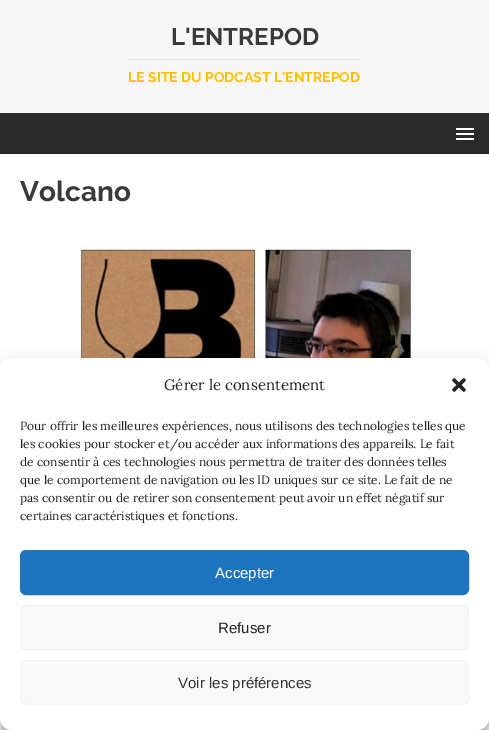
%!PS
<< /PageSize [489 730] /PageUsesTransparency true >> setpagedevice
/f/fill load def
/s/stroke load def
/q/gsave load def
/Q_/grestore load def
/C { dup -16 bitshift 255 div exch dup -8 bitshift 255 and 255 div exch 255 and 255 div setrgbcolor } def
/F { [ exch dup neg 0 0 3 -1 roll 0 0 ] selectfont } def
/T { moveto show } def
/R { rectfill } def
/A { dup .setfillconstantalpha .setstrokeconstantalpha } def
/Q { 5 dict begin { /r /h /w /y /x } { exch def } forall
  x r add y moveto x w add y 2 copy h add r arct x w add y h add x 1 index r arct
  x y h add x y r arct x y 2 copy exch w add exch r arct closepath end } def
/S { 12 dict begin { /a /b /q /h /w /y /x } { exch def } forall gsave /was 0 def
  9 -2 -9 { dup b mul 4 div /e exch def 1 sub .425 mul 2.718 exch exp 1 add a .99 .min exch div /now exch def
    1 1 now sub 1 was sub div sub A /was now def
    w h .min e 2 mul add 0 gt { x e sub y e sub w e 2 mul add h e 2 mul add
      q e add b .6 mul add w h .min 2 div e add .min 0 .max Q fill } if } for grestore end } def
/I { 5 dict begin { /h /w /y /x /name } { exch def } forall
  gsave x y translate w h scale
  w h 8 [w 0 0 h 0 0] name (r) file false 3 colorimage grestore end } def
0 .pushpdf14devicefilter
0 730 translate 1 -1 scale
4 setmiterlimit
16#F7F7F7 C
0 0 489 730 R
/Raleway-Bold 24 F
16#3A3A3A C
(L'ENTREPOD) 171 45 T
16#E5E5E5 C
128 59 233 1 R
/Raleway-Bold 14 F
16#FFC001 C
(LE SITE DU PODCAST L'ENTREPOD) 128 82 T
16#2A2A2A C
0 113 489 41 R
16#FFFFFF C
456 128 18 2 1 Q f
456 133 18 2 1 Q f
456 138 18 2 1 Q f
0 154 489 576 R
/Raleway-Bold 28 F
16#3A3A3A C
(Volcano) 20 201 T
(1.rgb) 79 243 336 115 I
16#000000 C
0 364 489 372 12 3 .23 S
0 368 489 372 12 10 .19 S
16#FFFFFF C
0 358 489 372 12 Q f
/Lora-Regular 15 F
16#222222 C
(Gérer le consentement) 164 390 T
(2.rgb) 452 378 14 14 I
/Lora-Regular 12 F
(Pour offrir les meilleures expériences, nous utilisons des technologies telles que) 20 430 T
(les cookies pour stocker et/ou accéder aux informations des appareils. Le fait) 20 448 T
(de consentir à ces technologies nous permettra de traiter des données telles) 20 466 T
(que le comportement de navigation ou les ID uniques sur ce site. Le fait de ne) 20 484 T
(pas consentir ou de retirer son consentement peut avoir un effet négatif sur) 20 502 T
(certaines caractéristiques et fonctions.) 20 520 T
16#1E73BE C
20.5 550.5 448 44 5.5 Q q f Q_
s
/LiberationSans-Regular 15 F
16#FFFFFF C
(Accepter) 215 578 T
16#F9F9F9 C
20.5 605.5 448 44 5.5 Q q f Q_
16#F2F2F2 C
s
16#222222 C
(Refuser) 218 633 T
16#F9F9F9 C
20.5 660.5 448 44 5.5 Q q f Q_
16#F2F2F2 C
s
16#333333 C
(Voir les préférences) 178 688 T
.poppdf14devicefilter showpage
